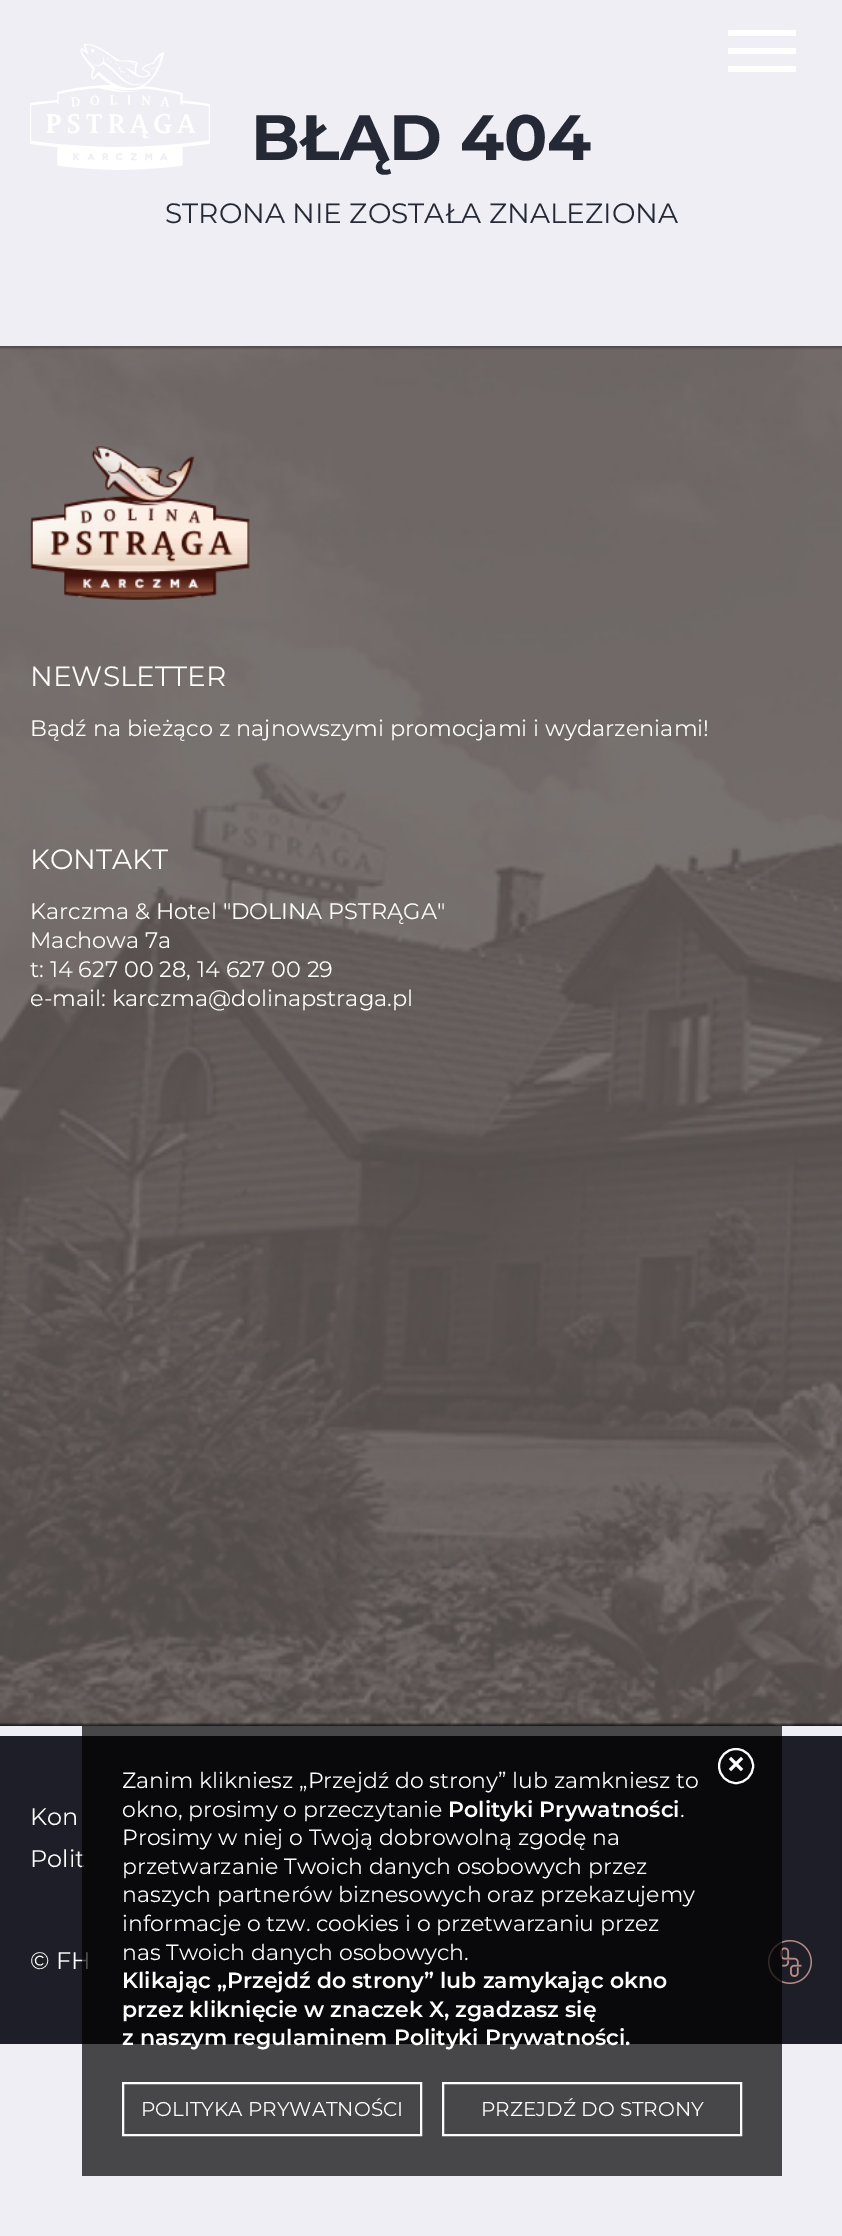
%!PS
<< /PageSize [842 2236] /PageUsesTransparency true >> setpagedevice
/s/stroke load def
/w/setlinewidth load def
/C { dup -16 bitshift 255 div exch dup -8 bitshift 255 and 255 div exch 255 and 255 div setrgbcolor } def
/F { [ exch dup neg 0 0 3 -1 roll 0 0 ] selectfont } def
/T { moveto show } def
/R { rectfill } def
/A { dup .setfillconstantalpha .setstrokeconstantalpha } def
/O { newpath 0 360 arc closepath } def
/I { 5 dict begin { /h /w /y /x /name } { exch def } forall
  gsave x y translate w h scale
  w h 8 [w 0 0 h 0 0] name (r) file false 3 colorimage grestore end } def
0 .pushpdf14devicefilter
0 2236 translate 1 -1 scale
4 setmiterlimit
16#EFEEF4 C
0 0 842 2236 R
(1.rgb) 30 44 180 126 I
16#FFFFFF C
728 48 68 6 R
728 30 68 6 R
728 66 68 6 R
/Montserrat-Bold 64 F
16#252936 C
(BŁĄD 404) 251 160 T
/Montserrat-Regular 28 F
(STRONA NIE ZOSTAŁA ZNALEZIONA) 165 223 T
(2.rgb) 0 346 842 1380 I
(3.rgb) 30 446 220 154 I
16#FEFEFC C
(NEWSLETTER) 30 686 T
/Montserrat-Regular 22.4 F
(Bądź na bieżąco z najnowszymi promocjami i wydarzeniami!) 30 736 T
/Montserrat-Regular 28 F
(KONTAKT) 30 869 T
/Montserrat-Regular 22.4 F
(Karczma & Hotel "DOLINA PSTRĄGA") 30 919 T
(Machowa 7a) 30 948 T
(t: 14 627 00 28, 14 627 00 29) 30 977 T
(e-mail: karczma@dolinapstraga.pl) 30 1006 T
16#1E1E28 C
0 1736 842 308 R
/Montserrat-Regular 24 F
16#FEFEFC C
(Kon) 30 1825 T
(Polit) 30 1867 T
(© FH) 30 1969 T
(4.rgb) 768 1940 44 44 I
0.7 A
16#000000 C
82 1726 700 450 R
1 A
16#FFFFFF C
2 w
736 1766 17 O s
(5.rgb) 728 1756 16 16 I
/Montserrat-Regular 22 F
16#FEFEFC C
(Zanim klikniesz „Przejdź do strony” lub zamkniesz to) 122 1788 T
(okno, prosimy o przeczytanie) 122 1817 T
/Montserrat-SemiBold 22 F
(Polityki Prywatności) 448 1817 T
/Montserrat-Regular 22 F
(.) 680 1817 T
(Prosimy w niej o Twoją dobrowolną zgodę na) 122 1845 T
(przetwarzanie Twoich danych osobowych przez) 122 1874 T
(naszych partnerów biznesowych oraz przekazujemy) 122 1902 T
(informacje o tzw. cookies i o przetwarzaniu przez) 122 1931 T
(nas Twoich danych osobowych.) 122 1960 T
/Montserrat-SemiBold 22 F
(Klikając „Przejdź do strony” lub zamykając okno) 122 1988 T
(przez kliknięcie w znaczek X, zgadzasz się) 122 2017 T
(z naszym regulaminem Polityki Prywatności.) 122 2045 T
16#FFFFFF C
123 2083 298 52 rectstroke
/Montserrat-Regular 20 F
16#FEFEFC C
(POLITYKA PRYWATNOŚCI) 141 2116 T
16#FFFFFF C
443 2083 298 52 rectstroke
16#FEFEFC C
(PRZEJDŹ DO STRONY) 481 2116 T
.poppdf14devicefilter showpage
